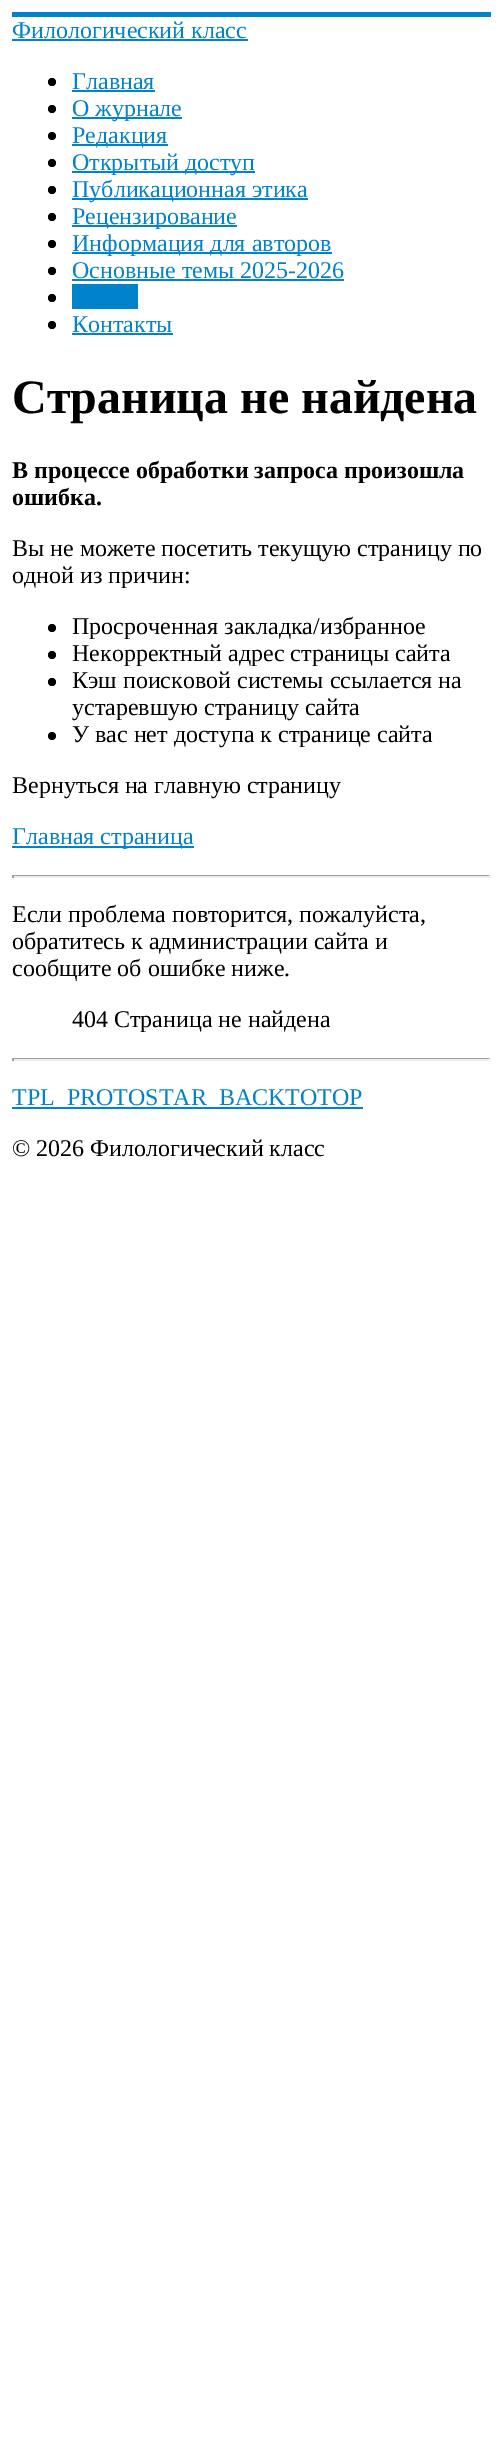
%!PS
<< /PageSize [502 2450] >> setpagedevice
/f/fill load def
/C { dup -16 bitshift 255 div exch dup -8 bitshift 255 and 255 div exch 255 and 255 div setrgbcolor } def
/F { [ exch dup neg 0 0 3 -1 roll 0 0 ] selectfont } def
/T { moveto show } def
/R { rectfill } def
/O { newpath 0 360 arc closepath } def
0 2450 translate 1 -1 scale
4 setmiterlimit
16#FFFFFF C
0 0 502 2450 R
16#0083CA C
12 12 479 5 R
/LiberationSerif-Regular 24 F
(Филологический класс) 12 38 T
12 39 236 2 R
16#000000 C
52 82 4 O f
16#0083CA C
(Главная) 72 89 T
72 90 83 2 R
16#000000 C
52 109 4 O f
16#0083CA C
72 117 110 2 R
(О журнале) 72 116 T
16#000000 C
52 136 4 O f
16#0083CA C
72 144 96 2 R
(Редакция) 72 143 T
16#000000 C
52 163 4 O f
16#0083CA C
72 171 183 2 R
(Открытый доступ) 72 170 T
16#000000 C
52 190 4 O f
16#0083CA C
72 198 236 2 R
(Публикационная этика) 72 197 T
16#000000 C
52 217 4 O f
16#0083CA C
72 225 165 2 R
(Рецензирование) 72 224 T
16#000000 C
52 244 4 O f
16#0083CA C
72 252 260 2 R
(Информация для авторов) 72 251 T
16#000000 C
52 271 4 O f
16#0083CA C
(Основные темы 2025-2026) 72 278 T
72 279 272 2 R
16#000000 C
52 298 4 O f
16#0083CA C
72 284 66 25 R
16#000000 C
52 325 4 O f
16#0083CA C
(Контакты) 72 332 T
72 333 101 2 R
/LiberationSerif-Bold 48 F
16#000000 C
(Страница не найдена) 12 413 T
/LiberationSerif-Bold 24 F
(В процессе обработки запроса произошла) 12 478 T
(ошибка.) 12 505 T
/LiberationSerif-Regular 24 F
(Вы не можете посетить текущую страницу по) 12 556 T
(одной из причин:) 12 583 T
52 628 4 O f
(Просроченная закладка/избранное) 72 634 T
52 655 4 O f
(Некорректный адрес страницы сайта) 72 661 T
52 682 4 O f
(Кэш поисковой системы ссылается на) 72 688 T
(устаревшую страницу сайта) 72 715 T
52 736 4 O f
(У вас нет доступа к странице сайта) 72 742 T
(Вернуться на главную страницу) 12 793 T
16#0083CA C
12 846 182 2 R
(Главная страница) 12 844 T
16#9F9F9F C
12 875 479 1 R
16#EEEEEE C
489 875 2 3 R
12 876 479 2 R
16#9F9F9F C
12 875 2 3 R
16#000000 C
(Если проблема повторится, пожалуйста,) 12 922 T
(обратитесь к администрации сайта и) 12 949 T
(сообщите об ошибке ниже.) 12 976 T
(404 Страница не найдена) 72 1027 T
16#9F9F9F C
12 1058 479 1 R
16#EEEEEE C
489 1058 2 3 R
12 1059 479 2 R
16#9F9F9F C
12 1058 2 3 R
16#0083CA C
12 1107 351 2 R
(TPL_PROTOSTAR_BACKTOTOP) 12 1105 T
16#000000 C
(© 2026 Филологический класс) 12 1156 T
showpage
